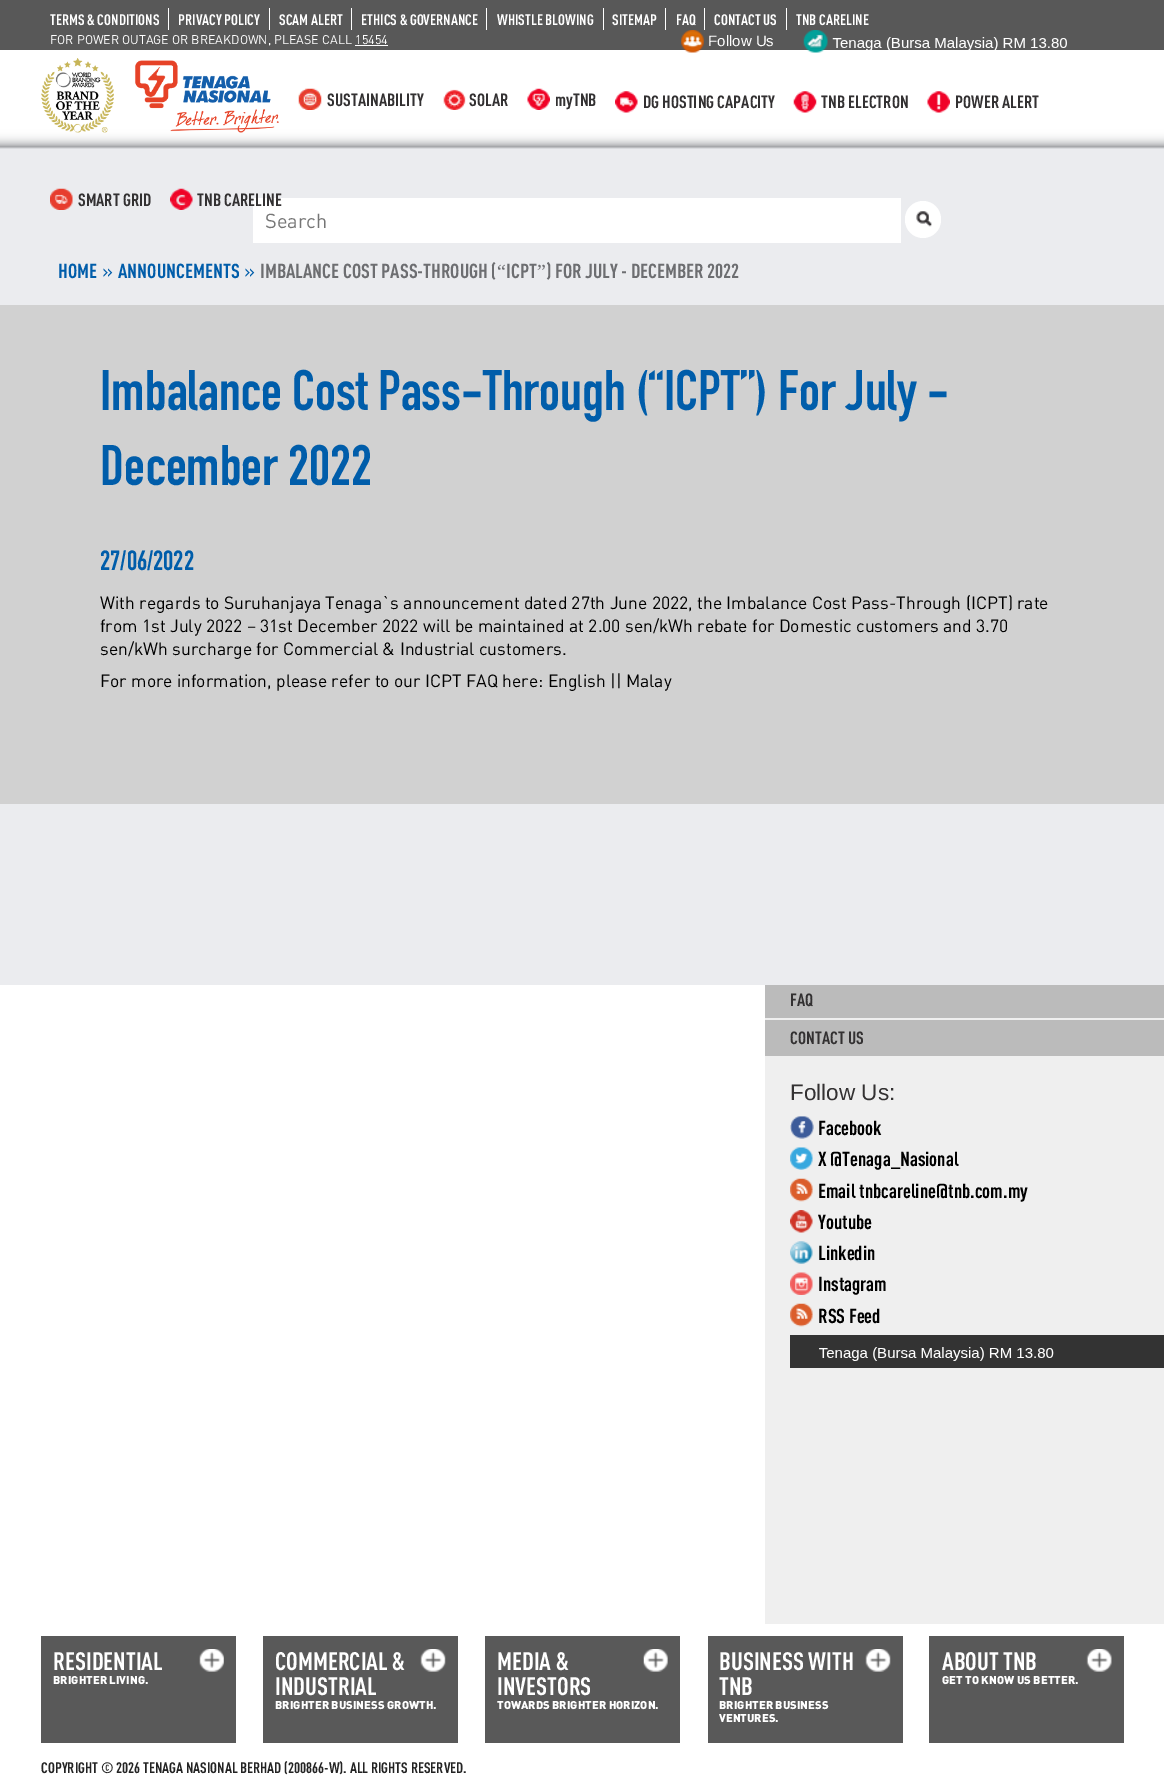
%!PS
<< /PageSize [1164 1792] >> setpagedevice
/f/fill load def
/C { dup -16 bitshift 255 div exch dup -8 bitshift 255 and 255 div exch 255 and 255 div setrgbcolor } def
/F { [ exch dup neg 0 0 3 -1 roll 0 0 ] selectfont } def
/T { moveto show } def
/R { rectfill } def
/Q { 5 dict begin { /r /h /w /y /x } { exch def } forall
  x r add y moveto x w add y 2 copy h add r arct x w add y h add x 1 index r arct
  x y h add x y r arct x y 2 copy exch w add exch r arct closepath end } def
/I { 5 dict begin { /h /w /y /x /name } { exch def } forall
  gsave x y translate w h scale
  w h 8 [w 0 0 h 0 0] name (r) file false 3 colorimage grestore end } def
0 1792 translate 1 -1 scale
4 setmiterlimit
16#FFFFFF C
0 0 1164 1792 R
16#585858 C
0 0 1164 50 R
16#FFFFFF C
168 8 1 22 R
/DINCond-Bold 15 F
(TERMS & CONDITIONS) 50 25 T
269 8 1 22 R
(PRIVACY POLICY) 178 25 T
351 8 1 22 R
(SCAM ALERT) 279 25 T
486 8 1 22 R
(ETHICS & GOVERNANCE) 361 25 T
603 8 1 22 R
(WHISTLE BLOWING) 497 25 T
665 8 1 22 R
(SITEMAP) 612 25 T
704 8 1 22 R
(FAQ) 676 25 T
786 8 1 22 R
(CONTACT US) 714 25 T
(TNB CARELINE) 796 25 T
16#EBECEF C
0 147 1164 838 R
(4.rgb) 0 50 1164 99 I
(1.rgb) 681 30 23 23 I
/LiberationSans-Regular 15 F
16#FFFFFF C
(Follow Us) 708 46 T
(2.rgb) 803 30 25 23 I
(3.rgb) 832 37 235 13 I
/DIN-Regular 12.5 F
(FOR POWER OUTAGE OR BREAKDOWN, PLEASE CALL 15454) 50 44 T
355 45 33 1 R
(5.rgb) 41 58 238 75 I
(6.rgb) 298 88 24 22 I
/DINCond-Bold 17.5 F
16#333132 C
(SUSTAINABILITY) 327 106 T
(7.rgb) 443 89 23 21 I
(SOLAR) 469 106 T
(8.rgb) 527 88 23 22 I
(myTNB) 555 106 T
(9.rgb) 615 91 23 22 I
(DG HOSTING CAPACITY) 643 108 T
(10.rgb) 793 91 24 22 I
(TNB ELECTRON) 821 108 T
(11.rgb) 927 91 23 22 I
(POWER ALERT) 955 108 T
(12.rgb) 50 188 23 22 I
(SMART GRID) 78 206 T
(13.rgb) 170 188 23 22 I
16#FFFFFF C
253 198 648 45 R
16#333132 C
(TNB CARELINE) 197 206 T
/DIN-Regular 20 F
16#757575 C
(Search) 265 228 T
16#FFFFFF C
905 201 36 37 18 Q f
(14.rgb) 916 211 16 16 I
/DINCond-Bold 20 F
16#005DAA C
(HOME) 58 278 T
(ANNOUNCEMENTS) 118 278 T
16#6D6E71 C
(IMBALANCE COST PASS-THROUGH \() 260 278 T
/LiberationSerif-Regular 20 F
(“) 497 278 T
/DINCond-Bold 20 F
(ICPT) 506 278 T
/LiberationSerif-Regular 20 F
(”) 537 278 T
/DINCond-Bold 20 F
(\) FOR JULY - DECEMBER 2022) 546 278 T
/DIN-Regular 20 F
16#005DAA C
(») 102 278 T
(») 244 278 T
16#D1D1D1 C
0 305 1164 499 R
/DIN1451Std-Regular 56.25 F
16#005DAA C
(Imbalance Cost Pass-Through \(“ICPT”\) For July -) 100 410 T
(December 2022) 100 485 T
/DIN1451Std-Regular 27.5 F
(27/06/2022) 100 570 T
/DIN-Regular 17.5 F
16#000000 C
(With regards to Suruhanjaya Tenaga`s announcement dated 27th June 2022, the Imbalance Cost Pass-Through \(ICPT\) rate) 100 609 T
(from 1st July 2022 – 31st December 2022 will be maintained at 2.00 sen/kWh rebate for Domestic customers and 3.70) 100 632 T
(sen/kWh surcharge for Commercial & Industrial customers.) 100 655 T
(For more information, please refer to our ICPT FAQ here: English || Malay) 100 687 T
16#595959 C
41 1636 195 107 R
/DINCond-Bold 25 F
16#FFFFFF C
(RESIDENTIAL) 53 1670 T
(15.rgb) 199 1649 25 23 I
/DIN-Black 11.25 F
(BRIGHTER LIVING.) 53 1684 T
16#595959 C
263 1636 195 107 R
/DINCond-Bold 25 F
16#FFFFFF C
(COMMERCIAL &) 275 1670 T
(16.rgb) 420 1649 26 23 I
(INDUSTRIAL) 275 1695 T
/DIN-Black 11.25 F
(BRIGHTER BUSINESS GROWTH.) 275 1709 T
16#595959 C
485 1636 195 107 R
/DINCond-Bold 25 F
16#FFFFFF C
(MEDIA &) 497 1670 T
(17.rgb) 643 1649 25 23 I
(INVESTORS) 497 1695 T
/DIN-Black 11.25 F
(TOWARDS BRIGHTER HORIZON.) 497 1709 T
16#595959 C
708 1636 195 107 R
/DINCond-Bold 25 F
16#FFFFFF C
(BUSINESS WITH) 719 1670 T
(16.rgb) 865 1649 26 23 I
(TNB) 719 1695 T
/DIN-Black 11.25 F
(BRIGHTER BUSINESS) 719 1709 T
(VENTURES.) 719 1722 T
16#595959 C
929 1636 195 107 R
/DINCond-Bold 25 F
16#FFFFFF C
(ABOUT TNB) 942 1670 T
(18.rgb) 1086 1649 26 23 I
/DIN-Black 11.25 F
(GET TO KNOW US BETTER.) 942 1684 T
/DINCond-Bold 15 F
16#232323 C
(COPYRIGHT © 2026 TENAGA NASIONAL BERHAD \(200866-W\). ALL RIGHTS RESERVED.) 41 1773 T
16#EFEFEF C
765 1018 399 606 R
16#BBBBBB C
765 985 399 33 R
/DINCond-Bold 17.5 F
16#333132 C
(FAQ) 790 1006 T
16#BBBBBB C
765 1020 399 36 R
16#333132 C
(CONTACT US) 790 1044 T
/LiberationSans-Regular 22.5 F
(Follow Us:) 790 1100 T
(19.rgb) 790 1116 24 23 I
/DINCond-Bold 20 F
16#000000 C
(Facebook) 818 1135 T
(20.rgb) 790 1147 23 23 I
(X @Tenaga_Nasional) 818 1166 T
(21.rgb) 790 1178 23 24 I
(Email tnbcareline@tnb.com.my) 818 1198 T
(22.rgb) 790 1210 23 23 I
(Youtube) 818 1229 T
(23.rgb) 790 1241 23 23 I
(Linkedin) 818 1260 T
(24.rgb) 790 1272 23 23 I
(Instagram) 818 1291 T
(21.rgb) 790 1303 23 24 I
(RSS Feed) 818 1323 T
16#333333 C
790 1335 374 33 R
(25.rgb) 819 1347 235 14 I
showpage
